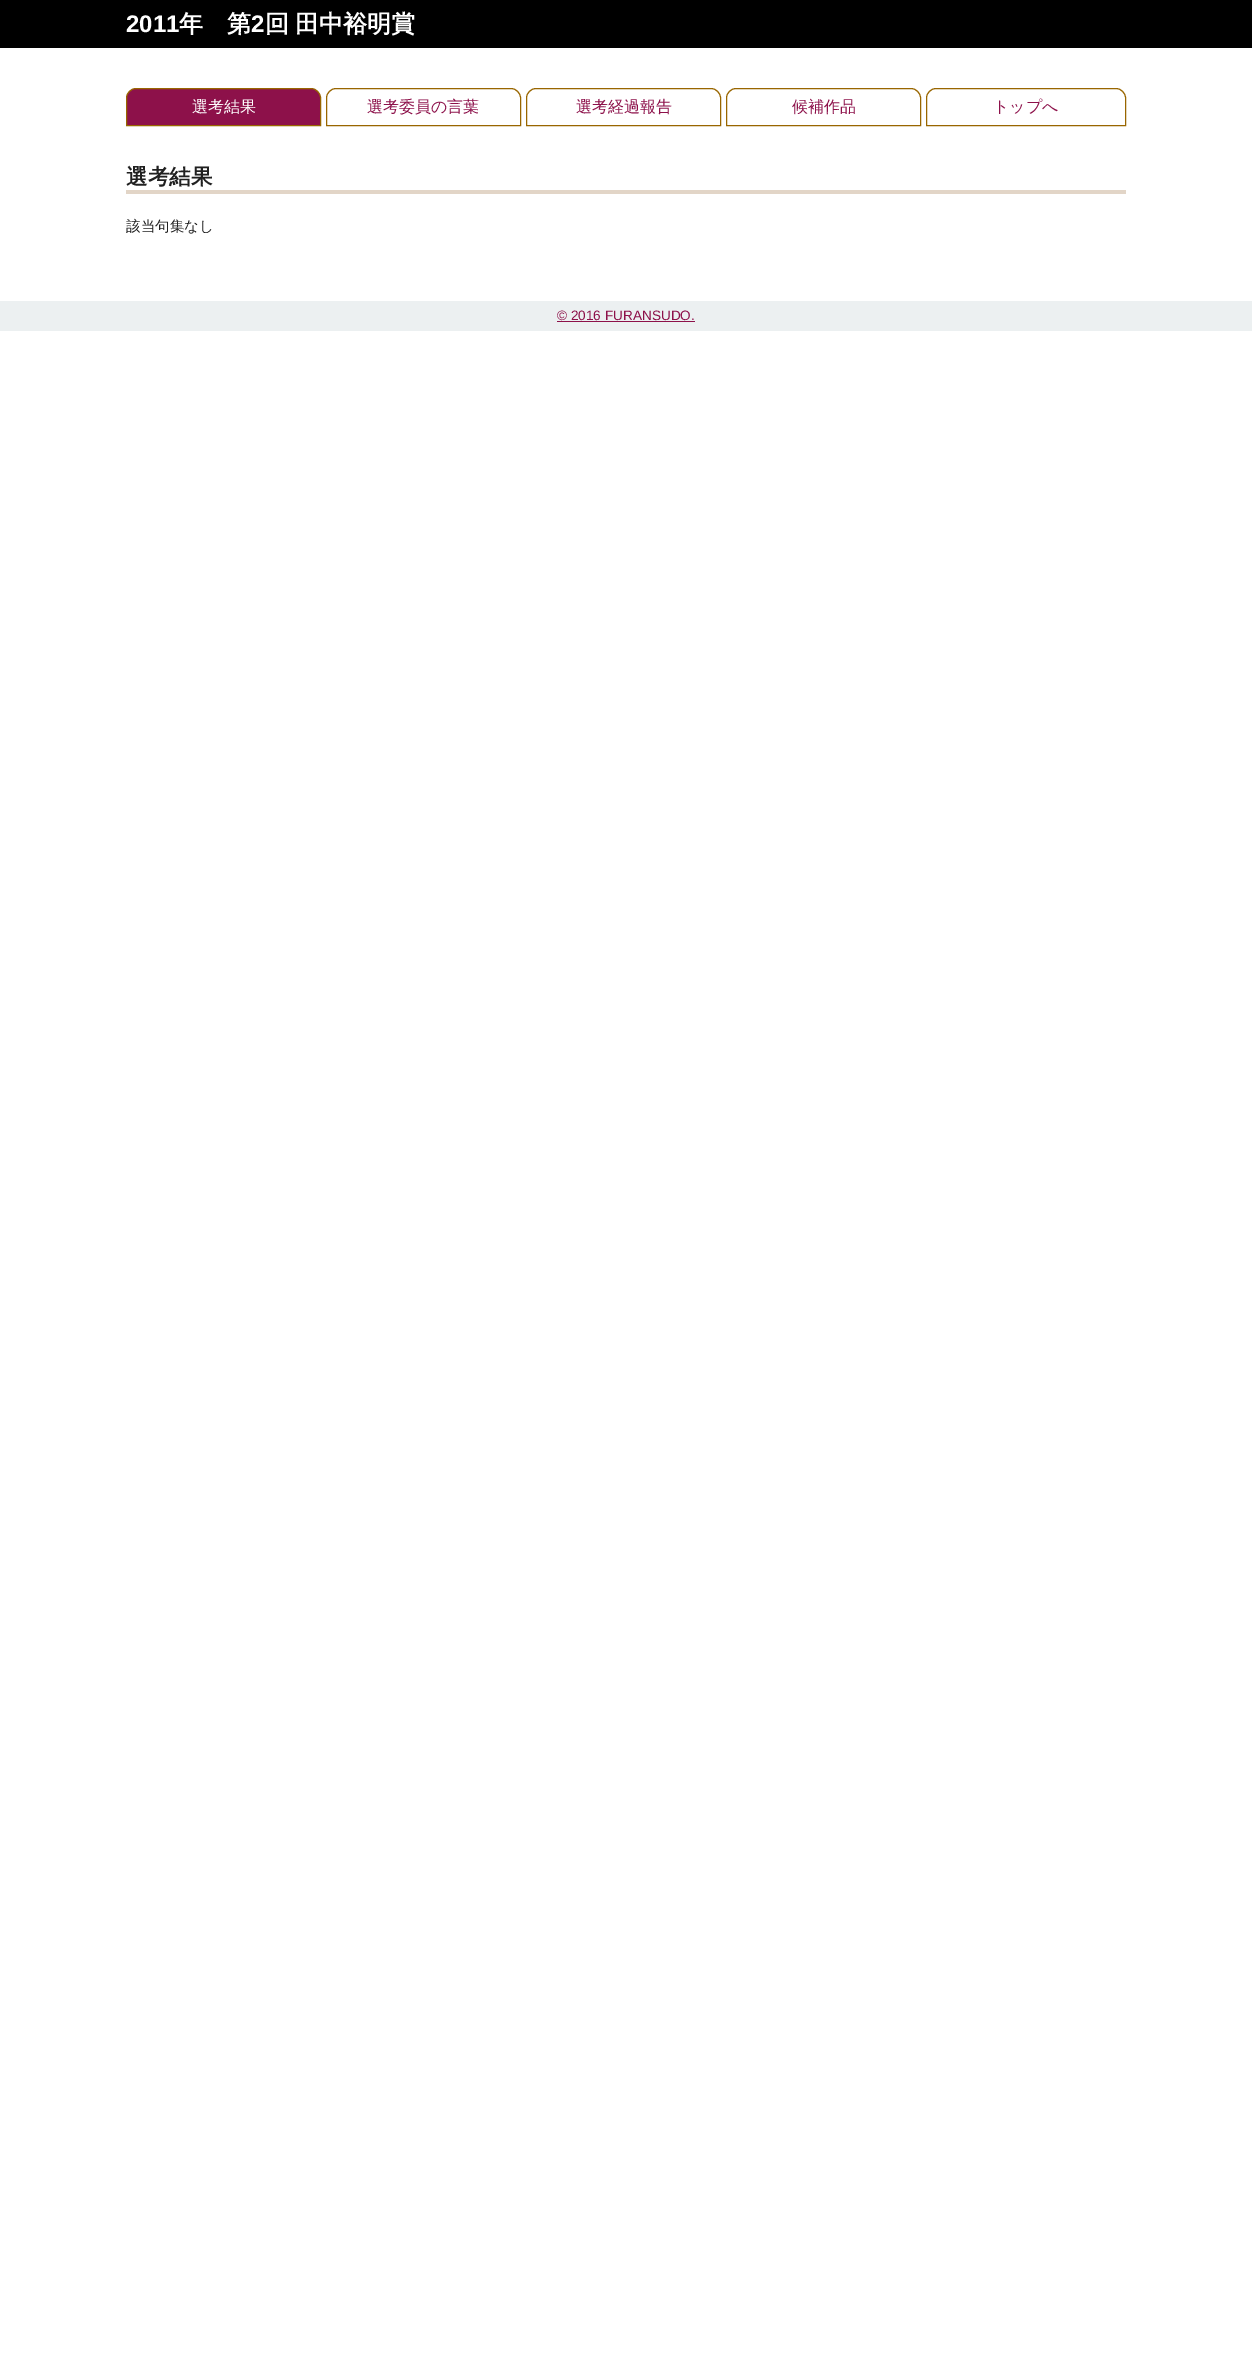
%!PS
<< /PageSize [1252 2367] >> setpagedevice
/m/moveto load def
/l/rlineto load def
/c/rcurveto load def
/z/closepath load def
/f/fill load def
/s/stroke load def
/q/gsave load def
/Q_/grestore load def
/C { dup -16 bitshift 255 div exch dup -8 bitshift 255 and 255 div exch 255 and 255 div setrgbcolor } def
/F { [ exch dup neg 0 0 3 -1 roll 0 0 ] selectfont } def
/T { moveto show } def
/R { rectfill } def
0 2367 translate 1 -1 scale
4 setmiterlimit
16#FFFFFF C
0 0 1252 2367 R
16#000000 C
0 0 1252 48 R
/LiberationSans-Bold 24 F
16#FFFFFF C
(2011) 126 32 T
/WenQuanYiZenHei-Bold 24 F
(年　第) 179 32 T
/LiberationSans-Bold 24 F
(2) 251 32 T
/WenQuanYiZenHei-Bold 24 F
265 32 m -1 0 32 (回 田中裕明賞) widthshow
16#8D114A C
136 88.5 m 175 0 l 5 0 9.5 4.5 9.5 9.5 c 0 27.5 l -194 0 l 0 -27.5 l 0 -5 4.5 -9.5 9.5 -9.5 c z q f Q_
16#996600 C
s
/WenQuanYiZenHei-Medium 16 F
16#FFFFFF C
(選考結果) 192 112 T
16#996600 C
336 88.5 m 175 0 l 5 0 9.5 4.5 9.5 9.5 c 0 27.5 l -194 0 l 0 -27.5 l 0 -5 4.5 -9.5 9.5 -9.5 c z s
16#8D114A C
(選考委員の言葉) 367 112 T
16#996600 C
536 88.5 m 175 0 l 5 0 9.5 4.5 9.5 9.5 c 0 27.5 l -194 0 l 0 -27.5 l 0 -5 4.5 -9.5 9.5 -9.5 c z s
16#8D114A C
(選考経過報告) 576 112 T
16#996600 C
736 88.5 m 175 0 l 5 0 9.5 4.5 9.5 9.5 c 0 27.5 l -194 0 l 0 -27.5 l 0 -5 4.5 -9.5 9.5 -9.5 c z s
16#8D114A C
(候補作品) 792 112 T
16#996600 C
936 88.5 m 180 0 l 5 0 9.5 4.5 9.5 9.5 c 0 27.5 l -199 0 l 0 -27.5 l 0 -5 4.5 -9.5 9.5 -9.5 c z s
16#8D114A C
(トップへ) 993 112 T
16#E2D5C7 C
126 190 1000 4 R
/WenQuanYiZenHei-Bold 21.5 F
16#202020 C
(選考結果) 126 184 T
/WenQuanYiZenHei-Medium 14.5 F
(該当句集なし) 126 231 T
16#ECF0F1 C
0 301 1252 30 R
/LiberationSans-Regular 13.6 F
16#8D114A C
(© 2016 FURANSUDO.) 557 320 T
557 321 138 1 R
showpage
